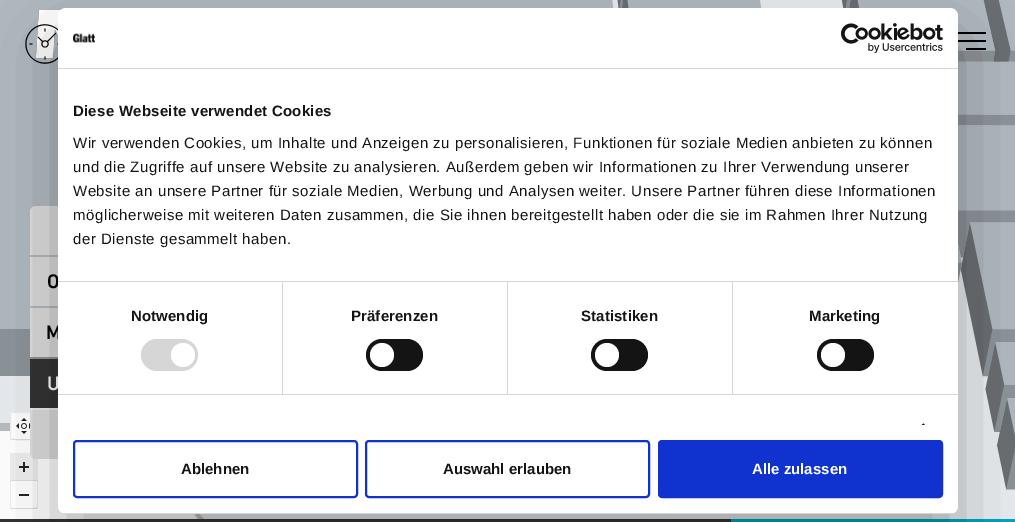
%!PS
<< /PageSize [1015 522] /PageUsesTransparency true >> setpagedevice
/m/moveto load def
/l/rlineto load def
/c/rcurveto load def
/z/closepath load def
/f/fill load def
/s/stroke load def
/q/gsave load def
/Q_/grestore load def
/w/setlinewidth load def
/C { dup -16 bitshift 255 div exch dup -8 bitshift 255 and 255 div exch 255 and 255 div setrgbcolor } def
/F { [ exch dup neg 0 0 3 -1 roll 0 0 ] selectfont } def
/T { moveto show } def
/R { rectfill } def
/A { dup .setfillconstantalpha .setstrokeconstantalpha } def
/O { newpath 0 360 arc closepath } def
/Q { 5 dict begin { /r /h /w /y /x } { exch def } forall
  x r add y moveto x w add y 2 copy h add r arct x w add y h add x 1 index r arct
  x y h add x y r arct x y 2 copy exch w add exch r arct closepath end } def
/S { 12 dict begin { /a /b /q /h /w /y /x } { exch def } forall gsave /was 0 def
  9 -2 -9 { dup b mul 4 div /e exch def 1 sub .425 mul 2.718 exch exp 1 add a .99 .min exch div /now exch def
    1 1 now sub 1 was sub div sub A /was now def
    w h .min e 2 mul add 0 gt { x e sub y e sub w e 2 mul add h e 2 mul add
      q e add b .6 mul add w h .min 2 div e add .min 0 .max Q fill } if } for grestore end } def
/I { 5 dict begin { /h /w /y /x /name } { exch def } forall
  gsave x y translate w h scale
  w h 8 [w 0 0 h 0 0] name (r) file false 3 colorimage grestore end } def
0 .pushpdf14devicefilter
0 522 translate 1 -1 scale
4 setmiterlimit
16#FFFFFF C
0 0 1015 522 R
(2.rgb) 0 0 1015 519 I
(1.rgb) 25 24 33 40 I
16#000000 C
954 40 32 2 R
954 32 32 2 R
966 48 20 2 R
16#FFFFFF C
10 412 28 28 2 Q f
(3.rgb) 16 418 14 16 I
16#DDDDDD C
37 439 m -1 .5 l -2.5 0 -24 .5 -25 -.5 c s
16#EEEEEE C
11 439 m -1 -1 -.5 -5 -.5 -5 c 0 -16 l 0 -6 -.5 -5.5 5.5 -5.5 c 16 0 l 6 0 5.5 -.5 5.5 5.5 c 0 16 l 0 0 .5 4 -.5 5 c s
12 453 m 24 0 l 1 0 2 1 2 2 c 0 26 l -28 0 l 0 -26 l 0 -1 1 -2 2 -2 c z f
(4.rgb) 19 462 10 10 I
16#DDDDDD C
38 481 m -1 -1 l -26 0 l -1 1 l z f
16#EEEEEE C
10 481 m 1 -1 l 0 -3 -.5 -25 .5 -25.5 c -1 -1 l -.5 1.5 l z f
16#222222 C
19 494 10 2 R
16#EEEEEE C
38 481 m -1 0 l 0 25.5 l -.5 1 l 1 1 l .5 -1.5 l z f
16#DDDDDD C
12 509 m 24.5 0 l 1 -.5 l -1 -1 l -.5 1 -22 .5 -25 .5 c 0 -.5 l -1 1 l z f
16#EEEEEE C
10 481 m 1 0 l 0 26 l .5 .5 l -1 1 l -.5 -1.5 l z f
16#DDDDDD C
36 206 m 58 0 l 3.5 0 6 2.5 6 6 c 0 43 l -70 0 l 0 -43 l 0 -3.5 2.5 -6 6 -6 c z f
30 257 28 49 R
/DINNext-Medium 20 F
16#000000 C
(O) 47 288 T
16#DDDDDD C
30 308 28 49 R
16#000000 C
(M) 46 339 T
16#333333 C
30 359 28 49 R
16#FFFFFF C
(U) 47 390 T
16#DDDDDD C
30 410 m 70 0 l 0 43 l 0 3.5 -2.5 6 -6 6 c -58 0 l -3.5 0 -6 -2.5 -6 -6 c z f
16#333333 C
0 519 731 3 R
16#00A4BD C
731 519 284 3 R
16#000000 C
58 40 900 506 8 34 .3 S
16#FFFFFF C
58 8 900 506 8 Q f
16#D6D6D6 C
58 68 900 1 R
(5.rgb) 73 33 22 10 I
(6.rgb) 841 23 102 30 I
58 281 900 1 R
/LiberationSans-Bold 15 F
16#141414 C
73 116 m .25 0 (Diese Webseite verwendet Cookies) ashow
/LiberationSans-Regular 15 F
73 148 m .5 0 (Wir verwenden Cookies, um Inhalte und Anzeigen zu personalisieren, Funktionen für soziale Medien anbieten zu können) ashow
73 172 m .5 0 (und die Zugriffe auf unsere Website zu analysieren. Außerdem geben wir Informationen zu Ihrer Verwendung unserer) ashow
73 196 m .5 0 (Website an unsere Partner für soziale Medien, Werbung und Analysen weiter. Unsere Partner führen diese Informationen) ashow
73 220 m .5 0 (möglicherweise mit weiteren Daten zusammen, die Sie ihnen bereitgestellt haben oder die sie im Rahmen Ihrer Nutzung) ashow
73 244 m .5 0 (der Dienste gesammelt haben.) ashow
16#D6D6D6 C
58 394 900 1 R
282 282 1 112 R
/LiberationSans-Bold 15 F
16#141414 C
131 321 m .1 0 (Notwendig) ashow
16#D6D6D6 C
141 339 57 32 16 Q f
16#FFFFFF C
183 355 12 O f
16#D6D6D6 C
507 282 1 112 R
16#141414 C
351 321 m .1 0 (Präferenzen) ashow
366 339 57 32 16 Q f
16#FFFFFF C
382 355 12 O f
16#D6D6D6 C
732 282 1 112 R
16#141414 C
581 321 m .1 0 (Statistiken) ashow
591 339 57 32 16 Q f
16#FFFFFF C
607 355 12 O f
16#141414 C
809 321 m .1 0 (Marketing) ashow
817 339 57 32 16 Q f
16#FFFFFF C
833 355 12 O f
q
58 69 900 356 rectclip
16#141414 C
923.5 423.5 m 5.5 5.5 l -1 1.5 l -6 -6 l z f
Q_
q
58 8 900 506 8 Q clip newpath
16#D6D6D6 C
58 513 900 1 R
Q_
16#1032CF C
2 w
74 441 283 56 3 Q s
16#141414 C
(Ablehnen) 181 474 T
16#1032CF C
366 441 283 56 3 Q s
16#141414 C
(Auswahl erlauben) 443 474 T
16#1032CF C
659 441 283 56 3 Q q f Q_
s
16#FFFFFF C
(Alle zulassen) 752 474 T
.poppdf14devicefilter showpage
